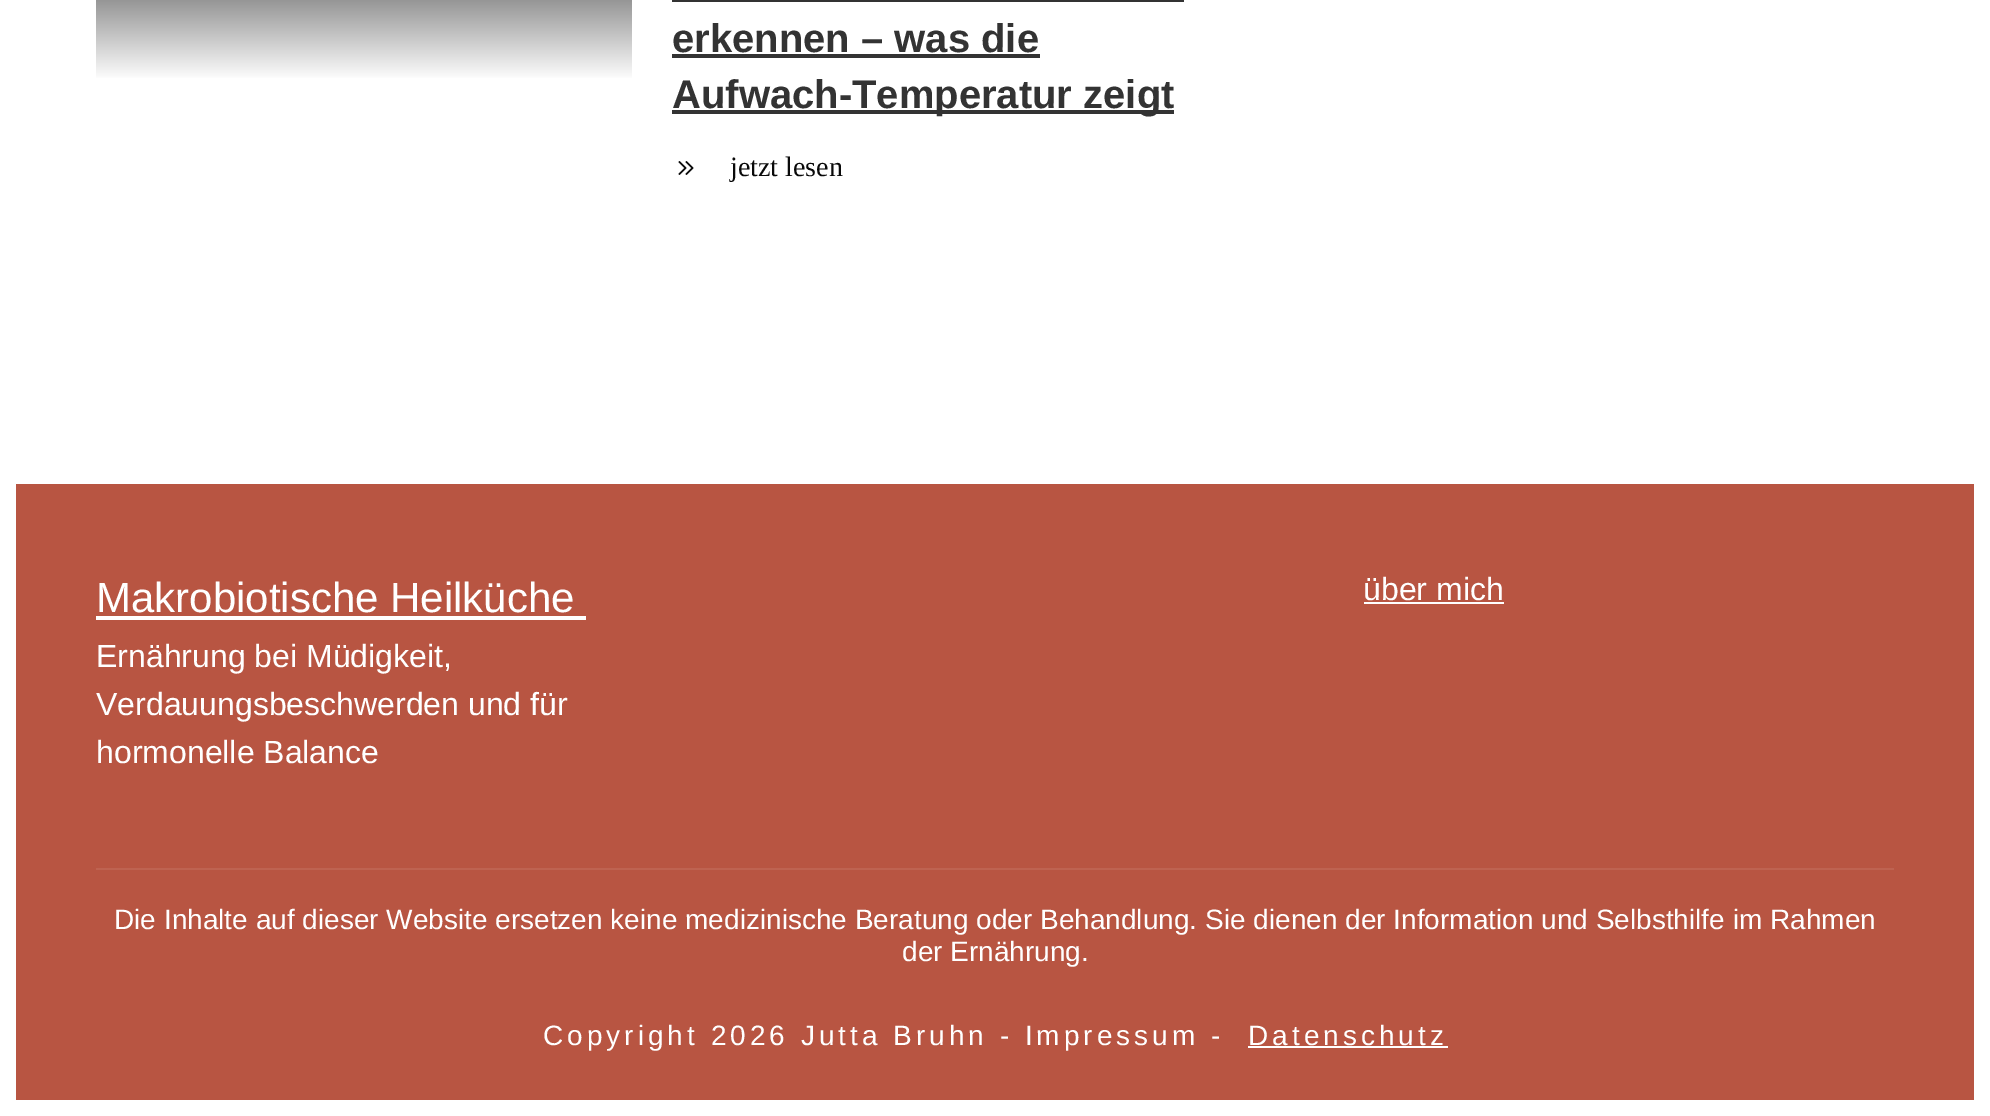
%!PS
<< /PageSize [1990 1116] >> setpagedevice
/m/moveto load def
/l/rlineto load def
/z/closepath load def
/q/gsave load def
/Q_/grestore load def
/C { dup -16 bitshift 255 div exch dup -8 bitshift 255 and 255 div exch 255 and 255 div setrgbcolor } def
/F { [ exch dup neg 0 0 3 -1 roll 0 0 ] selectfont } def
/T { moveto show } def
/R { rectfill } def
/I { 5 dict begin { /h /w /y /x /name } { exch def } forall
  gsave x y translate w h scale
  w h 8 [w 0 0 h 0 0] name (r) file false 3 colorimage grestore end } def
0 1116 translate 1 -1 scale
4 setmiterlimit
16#FFFFFF C
0 0 1990 1116 R
q 96 0 m 536 0 l 0 78 l -536 0 l z clip newpath
<< /ShadingType 2 /ColorSpace /DeviceRGB /Coords [364 -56 364 284] /Extend [true true] /Function << /FunctionType 3 /Domain [0 1] /Functions [<< /FunctionType 2 /Domain [0 1] /C0 [.302 .302 .302] /C1 [1 1 1] /N 1 >> << /FunctionType 2 /Domain [0 1] /C0 [1 1 1] /C1 [1 1 1] /N 1 >>] /Bounds [.4] /Encode [0 1 0 1] >> >> shfill Q_
/LiberationSans-Bold 40 F
16#333333 C
(erkennen – was die) 672 52 T
672 0 512 2 R
672 54 368 4 R
672 110 502 4 R
(Aufwach-Temperatur zeigt) 672 108 T
(1.rgb) 678 161 16 14 I
/LiberationSerif-Regular 28 F
16#0A0A0A C
(jetzt lesen) 730 176 T
16#B85542 C
16 484 1958 616 R
16#BE6351 C
96 868 1798 2 R
/LiberationSans-Regular 42 F
16#FFFFFF C
(Makrobiotische Heilküche) 96 612 T
96 616 490 4 R
/LiberationSans-Regular 32 F
(Ernährung bei Müdigkeit,) 96 667 T
(Verdauungsbeschwerden und für) 96 715 T
(hormonelle Balance) 96 763 T
(über mich) 1363 600 T
1364 602 140 2 R
/LiberationSans-Regular 28 F
(Die Inhalte auf dieser Website ersetzen keine medizinische Beratung oder Behandlung. Sie dienen der Information und Selbsthilfe im Rahmen) 114 929 T
(der Ernährung.) 902 961 T
543 1045 m 4 0 (Copyright 2026 Jutta Bruhn - Impressum -) ashow
1248 1045 m 4 0 (Datenschutz) ashow
1248 1046 200 2 R
showpage
